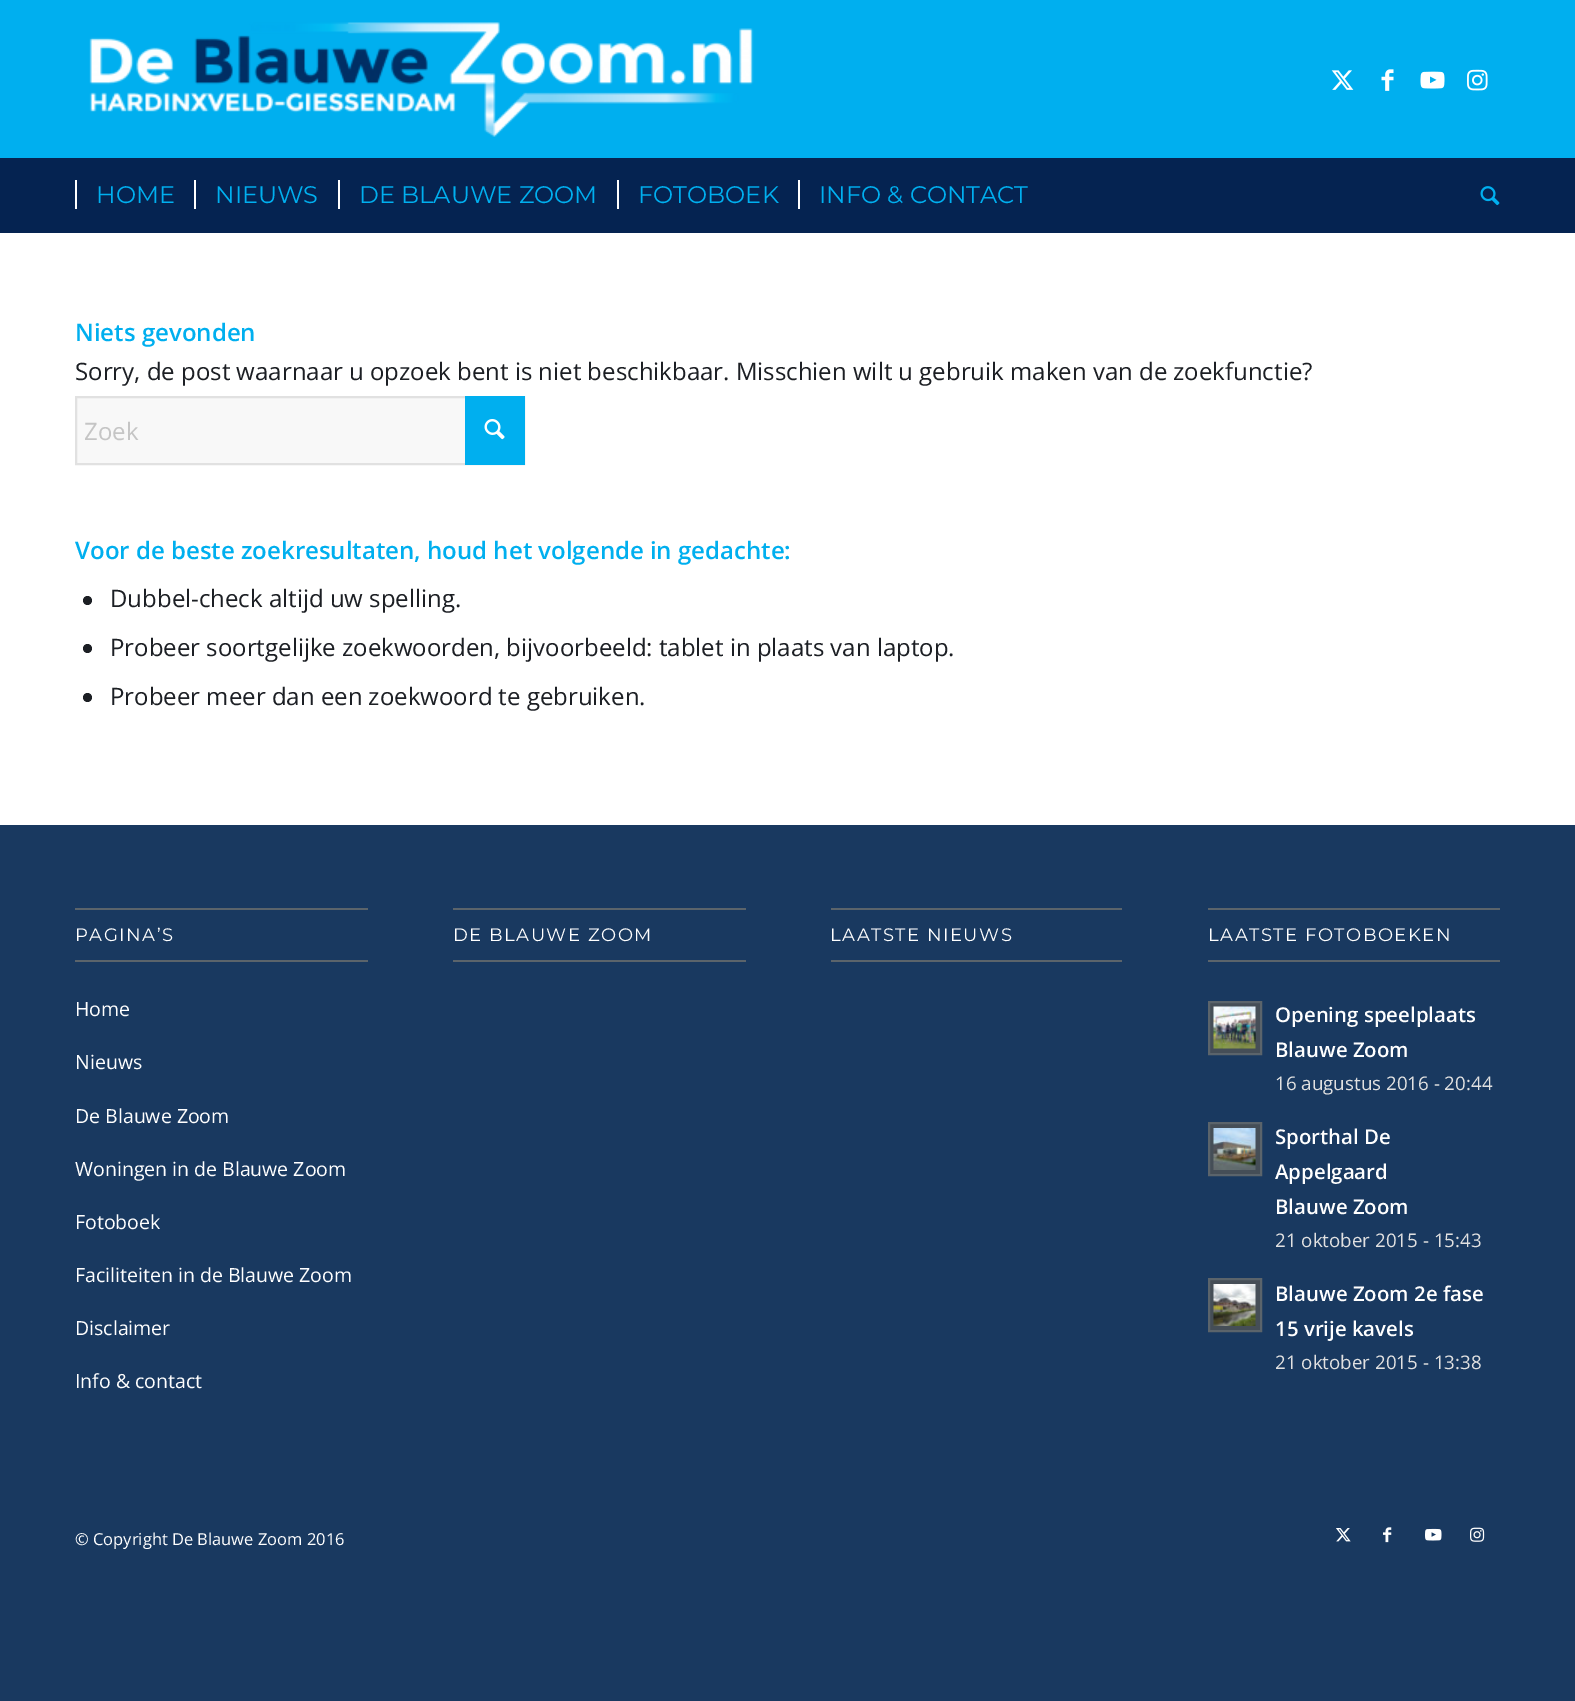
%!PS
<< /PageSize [1575 1701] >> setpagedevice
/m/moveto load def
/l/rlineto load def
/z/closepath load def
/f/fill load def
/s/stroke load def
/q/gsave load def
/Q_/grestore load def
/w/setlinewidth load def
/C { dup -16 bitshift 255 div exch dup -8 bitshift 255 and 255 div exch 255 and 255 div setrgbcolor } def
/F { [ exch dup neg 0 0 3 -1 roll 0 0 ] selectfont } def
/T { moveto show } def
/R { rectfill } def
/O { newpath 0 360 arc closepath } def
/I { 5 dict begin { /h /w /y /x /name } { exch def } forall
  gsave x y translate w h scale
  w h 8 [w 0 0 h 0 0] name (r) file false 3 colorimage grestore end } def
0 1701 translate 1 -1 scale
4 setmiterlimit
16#193960 C
0 0 1575 1701 R
16#00AFEF C
0 0 1575 158 R
(1.rgb) 89 22 665 115 I
(2.rgb) 1331 70 23 20 I
(3.rgb) 1381 69 13 22 I
(4.rgb) 1420 71 25 18 I
(5.rgb) 1467 69 21 22 I
16#052351 C
0 158 1575 75 R
/Montserrat-Thin 24 F
16#00AFEF C
(HOME) 96 203 T
16#FFFFFF C
75 180 2 29 R
16#00AFEF C
(NIEUWS) 215 203 T
16#FFFFFF C
194 180 2 29 R
16#00AFEF C
(DE BLAUWE ZOOM) 359 203 T
16#FFFFFF C
338 180 2 29 R
16#00AFEF C
(FOTOBOEK) 638 203 T
16#FFFFFF C
617 180 2 29 R
16#00AFEF C
(INFO & CONTACT) 819 203 T
16#FFFFFF C
798 180 2 29 R
(6.rgb) 1480 186 20 20 I
0 233 1575 592 R
/OpenSans-SemiBold 24 F
16#00AFEF C
(Niets gevonden) 75 341 T
/OpenSans-Regular 24 F
16#1C1F24 C
(Sorry, de post waarnaar u opzoek bent is niet beschikbaar. Misschien wilt u gebruik maken van de zoekfunctie?) 75 380 T
16#F8F8F8 C
77 398 388 65 R
16#E1E1E1 C
2 w
76 397 448 67 rectstroke
16#C5C5C5 C
(Zoek) 84 440 T
16#00AFEF C
465 396 60 69 R
(7.rgb) 484 419 21 21 I
/OpenSans-SemiBold 24 F
(Voor de beste zoekresultaten, houd het volgende in gedachte:) 75 559 T
16#1C1F24 C
87.5 600.5 4.5 O f
/OpenSans-Regular 24 F
(Dubbel-check altijd uw spelling.) 110 607 T
87.5 648.5 4.5 O f
(Probeer soortgelijke zoekwoorden, bijvoorbeeld: tablet in plaats van laptop.) 110 656 T
87.5 697.5 4.5 O f
(Probeer meer dan een zoekwoord te gebruiken.) 110 705 T
16#5B646B C
75 908 293 2 R
75 960 293 2 R
/Montserrat-Thin 18 F
16#FFFFFF C
75 941 m 1.5 0 (PAGINA’S) ashow
/OpenSans-Regular 19.5 F
(Home) 75 1016 T
(Nieuws) 75 1069 T
(De Blauwe Zoom) 75 1123 T
(Woningen in de Blauwe Zoom) 75 1176 T
(Fotoboek) 75 1229 T
(Faciliteiten in de Blauwe Zoom) 75 1282 T
(Disclaimer) 75 1335 T
(Info & contact) 75 1388 T
16#5B646B C
453 908 293 2 R
453 960 293 2 R
/Montserrat-Thin 18 F
16#FFFFFF C
453 941 m 1.5 0 (DE BLAUWE ZOOM) ashow
16#5B646B C
831 908 291 2 R
831 960 291 2 R
16#FFFFFF C
830 941 m 1.5 0 (LAATSTE NIEUWS) ashow
16#5B646B C
1208 908 292 2 R
1208 960 292 2 R
16#FFFFFF C
1208 941 m 1.5 0 (LAATSTE FOTOBOEKEN) ashow
16#454E57 C
1209 1002 m 52 0 l 0 52 l -52 0 l z q f Q_
16#5B646B C
s
(8.rgb) 1213 1006 43 43 I
/OpenSans-SemiBold 20.4 F
16#FFFFFF C
(Opening speelplaats) 1275 1022 T
(Blauwe Zoom) 1275 1057 T
/OpenSans-Regular 18.75 F
16#E1E1E1 C
(16 augustus 2016 - 20:44) 1275 1090 T
16#454E57 C
1209 1123 m 52 0 l 0 52 l -52 0 l z q f Q_
16#5B646B C
s
(9.rgb) 1213 1128 43 42 I
/OpenSans-SemiBold 20.4 F
16#FFFFFF C
(Sporthal De) 1275 1144 T
(Appelgaard) 1275 1179 T
(Blauwe Zoom) 1275 1214 T
/OpenSans-Regular 18.75 F
16#E1E1E1 C
(21 oktober 2015 - 15:43) 1275 1247 T
16#454E57 C
1209 1279 m 52 0 l 0 52 l -52 0 l z q f Q_
16#5B646B C
s
(10.rgb) 1213 1284 43 42 I
/OpenSans-SemiBold 20.4 F
16#FFFFFF C
(Blauwe Zoom 2e fase) 1275 1301 T
(15 vrije kavels) 1275 1336 T
/OpenSans-Regular 18.75 F
16#E1E1E1 C
(21 oktober 2015 - 13:38) 1275 1369 T
/OpenSans-Regular 16.5 F
16#FFFFFF C
(© Copyright De Blauwe Zoom 2016) 75 1545 T
(11.rgb) 1336 1528 15 14 I
(12.rgb) 1383 1527 9 16 I
(13.rgb) 1425 1528 17 13 I
(14.rgb) 1470 1527 15 15 I
showpage
